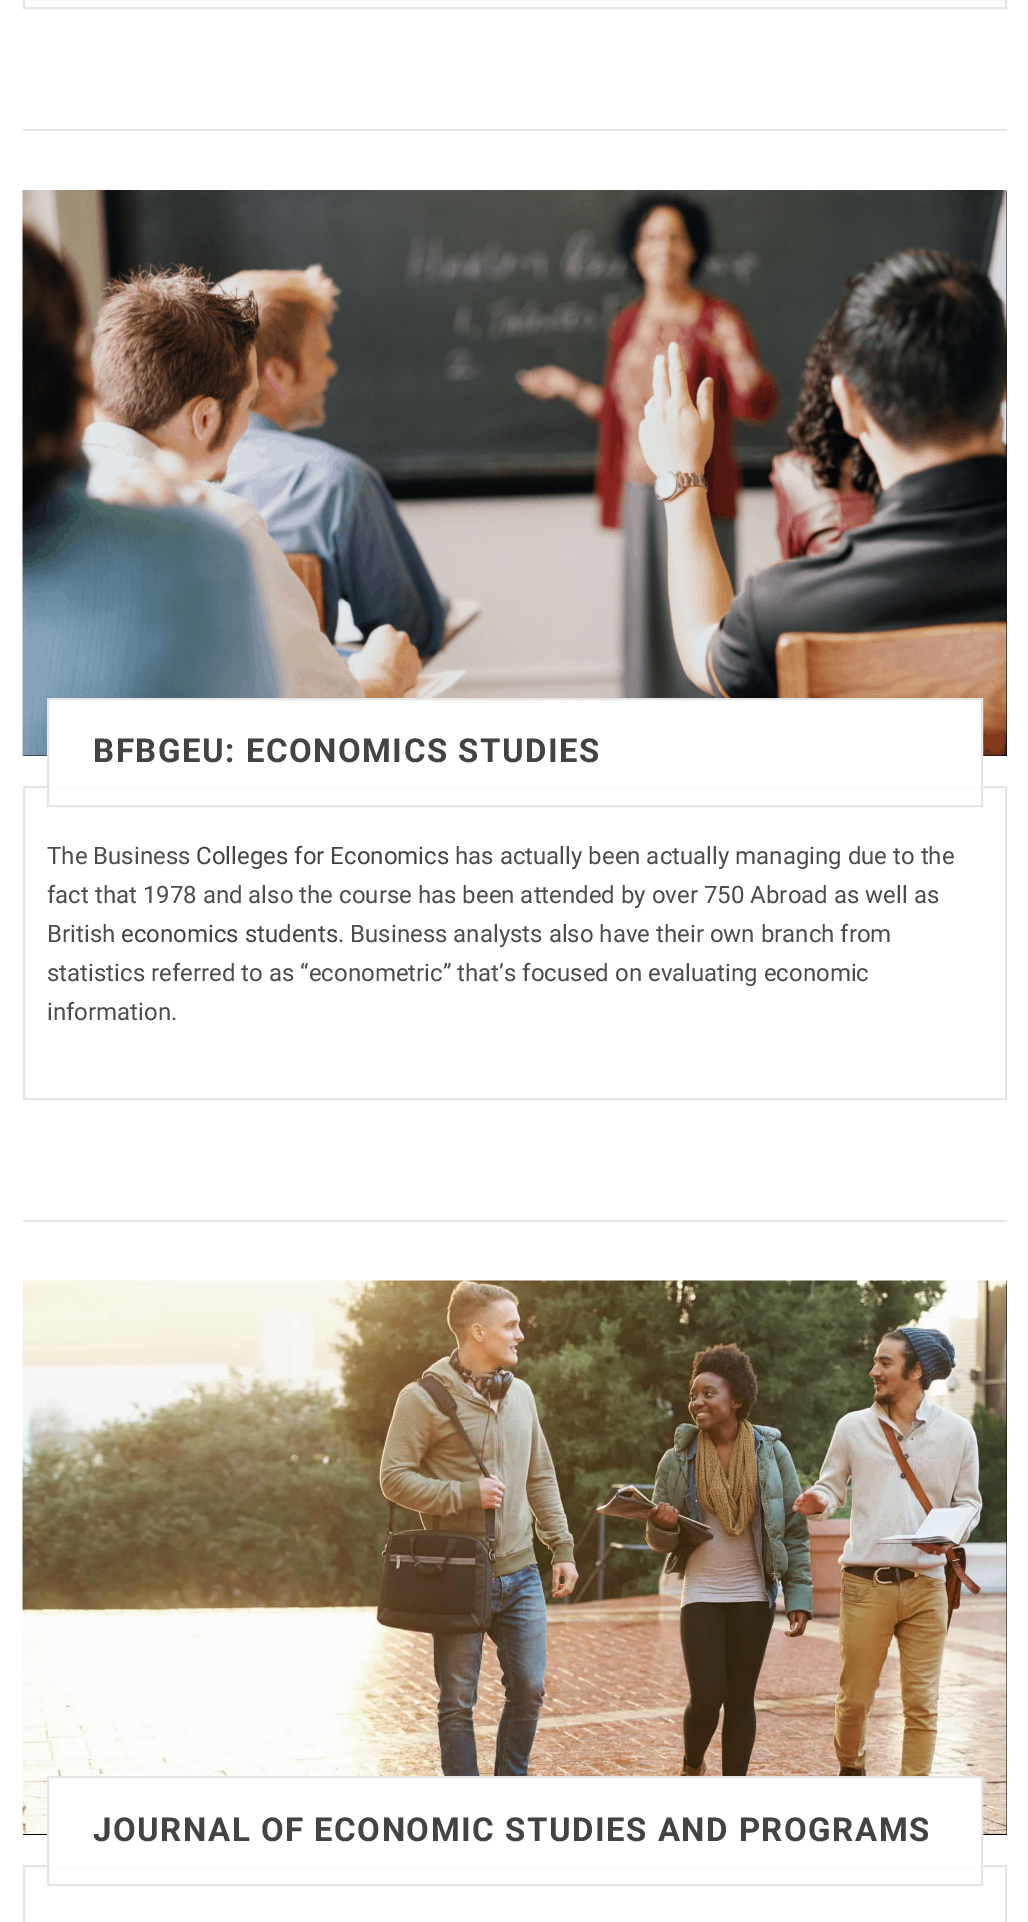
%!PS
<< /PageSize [1028 1922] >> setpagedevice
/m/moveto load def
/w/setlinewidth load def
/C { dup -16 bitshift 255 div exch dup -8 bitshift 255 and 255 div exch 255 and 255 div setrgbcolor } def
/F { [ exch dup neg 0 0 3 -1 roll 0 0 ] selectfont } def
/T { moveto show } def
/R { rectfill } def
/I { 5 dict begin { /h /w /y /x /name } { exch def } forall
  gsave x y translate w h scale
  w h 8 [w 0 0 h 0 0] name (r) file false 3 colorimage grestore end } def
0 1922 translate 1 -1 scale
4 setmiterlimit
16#FFFFFF C
0 0 1028 1922 R
16#E4E4E4 C
23 129 984 2 R
16#E5E5E5 C
2 w
24 -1 982 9 rectstroke
16#E4E4E4 C
23 1220 984 2 R
16#030303 C
23 191 984 565 R
(1.rgb) 22 190 985 566 I
16#E5E5E5 C
24 787 982 312 rectstroke
16#FFFFFF C
49 700 932 88 R
16#E5E5E5 C
48 699 934 107 rectstroke
/Roboto-Bold 33 F
16#434343 C
93 762 m 1.5 0 (BFBGEU: ECONOMICS STUDIES) ashow
/Roboto-Regular 24 F
16#4C4C4C C
(The Business) 47 864 T
16#434343 C
(Colleges for Economics) 196 864 T
16#4C4C4C C
(has actually been actually managing due to the) 455 864 T
(fact that 1978 and also the course has been attended by over 750 Abroad as well as) 47 903 T
(British) 47 942 T
16#434343 C
(economics students) 121 942 T
16#4C4C4C C
(. Business analysts also have their own branch from) 338 942 T
(statistics referred to as “econometric” that’s focused on evaluating economic) 47 981 T
(information.) 47 1020 T
16#030303 C
23 1281 984 554 R
(2.rgb) 22 1280 985 554 I
16#E5E5E5 C
24 1866 982 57 rectstroke
16#FFFFFF C
49 1778 932 89 R
16#E5E5E5 C
48 1777 934 108 rectstroke
/Roboto-Bold 33 F
16#434343 C
93 1841 m 1.5 0 (JOURNAL OF ECONOMIC STUDIES AND PROGRAMS) ashow
showpage
